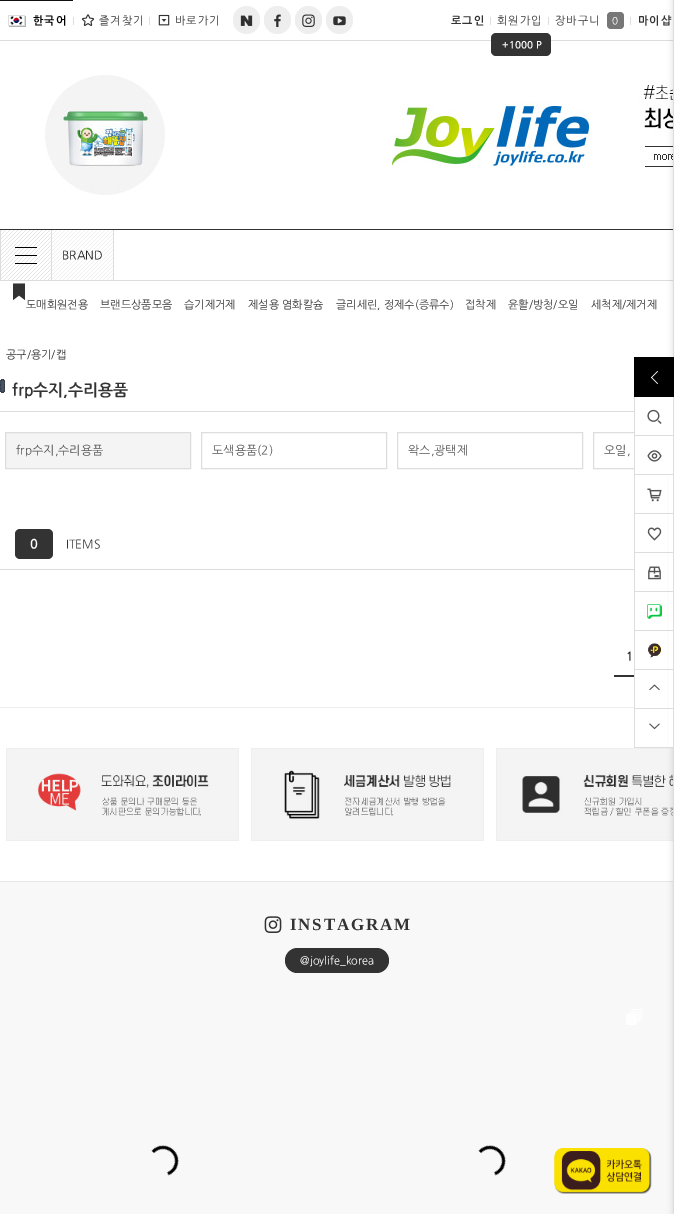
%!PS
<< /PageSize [674 1214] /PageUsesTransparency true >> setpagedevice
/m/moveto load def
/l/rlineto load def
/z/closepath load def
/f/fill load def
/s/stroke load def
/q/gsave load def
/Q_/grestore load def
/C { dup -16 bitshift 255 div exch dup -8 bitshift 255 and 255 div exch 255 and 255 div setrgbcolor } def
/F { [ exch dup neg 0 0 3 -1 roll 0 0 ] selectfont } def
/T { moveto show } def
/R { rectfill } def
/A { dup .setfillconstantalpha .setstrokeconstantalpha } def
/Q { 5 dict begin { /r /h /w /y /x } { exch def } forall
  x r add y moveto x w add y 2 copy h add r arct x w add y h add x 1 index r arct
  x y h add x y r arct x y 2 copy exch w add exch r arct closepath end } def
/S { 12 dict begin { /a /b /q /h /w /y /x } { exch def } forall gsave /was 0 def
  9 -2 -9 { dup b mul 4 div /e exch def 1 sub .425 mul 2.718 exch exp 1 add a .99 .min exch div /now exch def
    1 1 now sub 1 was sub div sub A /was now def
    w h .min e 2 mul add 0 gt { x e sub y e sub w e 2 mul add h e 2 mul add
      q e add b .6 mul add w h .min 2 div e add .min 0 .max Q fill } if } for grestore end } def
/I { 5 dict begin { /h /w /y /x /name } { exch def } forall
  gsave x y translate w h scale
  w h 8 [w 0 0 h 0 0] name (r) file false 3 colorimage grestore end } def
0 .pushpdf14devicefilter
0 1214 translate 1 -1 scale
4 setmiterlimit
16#FFFFFF C
0 0 674 1214 R
16#DDDDDD C
0 40 674 1 R
(19.rgb) 639 81 34 86 I
16#333333 C
0 229 674 1 R
16#DDDDDD C
0 280 674 1 R
593.5 432.5 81 36 rectstroke
(25.rgb) 496 748 177 93 I
16#F8F8F8 C
0 882 673 332 R
16#E6E6E6 C
0 881 674 1 R
16#000000 C
671 0 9 1214 0 2 .07 S
16#DDDDDD C
673 0 1 1214 R
16#000000 C
634 357 40 40 R
16#FFFFFF C
651 377.5 m 6.5 -6.5 l .5 .5 l -6.5 6.5 l z f
651.5 377 m 6.5 6.5 l -.5 .5 l -6.5 -6.5 l z f
635 397 38 38 R
16#DDDDDD C
634 435 40 1 R
634 397 1 39 R
(1.rgb) 647 409 15 15 I
16#FFFFFF C
635 436 38 38 R
16#DDDDDD C
634 474 40 1 R
634 436 1 39 R
(2.rgb) 647 450 15 12 I
16#FFFFFF C
669 475 4 38 R
16#DDDDDD C
634 513 40 1 R
634 475 1 39 R
(3.rgb) 647 488 15 14 I
16#FFFFFF C
669 514 4 38 R
16#DDDDDD C
634 552 40 1 R
634 514 1 39 R
(4.rgb) 647 527 15 14 I
16#FFFFFF C
669 553 4 38 R
16#DDDDDD C
634 591 40 1 R
634 553 1 39 R
(5.rgb) 648 566 13 14 I
16#FFFFFF C
669 592 4 38 R
16#DDDDDD C
634 630 40 1 R
634 592 1 39 R
(6.rgb) 647 604 15 15 I
16#FFFFFF C
669 631 4 38 R
16#DDDDDD C
634 669 40 1 R
634 631 1 39 R
(7.rgb) 648 643 14 15 I
16#FFFFFF C
669 670 4 38 R
16#DDDDDD C
634 708 40 1 R
634 670 1 39 R
(8.rgb) 649 684 11 7 I
16#FFFFFF C
669 709 4 38 R
16#DDDDDD C
634 747 40 1 R
634 709 1 39 R
(9.rgb) 649 723 11 7 I
16#111111 C
0 0 73 1 R
(10.rgb) 8 15 18 12 I
/NanumGothic-Bold 11 F
16#000000 C
33 24 m 1 0 (한국어) ashow
16#DDDDDD C
73 17 1 8 R
(11.rgb) 81 14 14 12 I
/NanumGothic-Regular 11 F
16#333333 C
99 24 m 1 0 (즐겨찾기) ashow
16#DDDDDD C
149 17 1 8 R
(12.rgb) 158 14 12 12 I
16#333333 C
175 24 m 1 0 (바로가기) ashow
16#EEEEEE C
233 6 27 28 13.5 Q f
(13.rgb) 240 15 13 11 I
264 6 27 28 13.5 Q f
(14.rgb) 274 14 7 13 I
295 6 27 28 13.5 Q f
(15.rgb) 302 14 13 13 I
326 6 27 28 13.5 Q f
(16.rgb) 333 16 13 10 I
/NanumGothic-Bold 11 F
16#333333 C
451 24 m 1 0 (로그인) ashow
16#DDDDDD C
490 17 1 8 R
/NanumGothic-Regular 11 F
16#333333 C
497 24 m 1 0 (회원가입) ashow
491 33 60 23 5 Q f
/NanumGothic-Bold 10 F
16#FFFFFF C
(+1000 P) 502 48 T
16#DDDDDD C
548 17 1 8 R
/NanumGothic-Regular 11 F
16#333333 C
555 24 m 1 0 (장바구니) ashow
16#777777 C
607 12 17 17 4 Q f
/NanumGothic-Regular 10 F
16#FFFFFF C
612 24 m 1 0 (0) ashow
16#DDDDDD C
630 17 1 8 R
/NanumGothic-Bold 11 F
16#333333 C
638 24 m 1 0 (마이샵) ashow
(17.rgb) 45 75 120 120 I
(18.rgb) 387 101 206 71 I
(20.rgb) 1 230 50 50 I
16#DDDDDD C
0 230 1 50 R
113 230 1 50 R
51 230 1 50 R
(21.rgb) 52 230 61 50 I
/NanumGothic-Regular 12 F
16#222222 C
(BRAND) 62 259 T
16#333333 C
19 295.5 m -6 4.5 l 0 -16.5 l 12 0 l 0 16.5 l z f
/NanumGothic-Regular 11 F
(도매회원전용) 26 308 T
(브랜드상품모음) 100 308 T
(습기제거제) 184 308 T
(제설용 염화칼슘) 248 308 T
(글리세린, 정제수\(증류수\)) 336 308 T
(접착제) 465 308 T
(윤활/방청/오일) 508 308 T
(세척제/제거제) 591 308 T
(공구/용기/캡) 6 358 T
16#DDDDDD C
0 411 634 1 R
(22.rgb) 0 379 5 14 I
/NanumGothic-Bold 16 F
16#333333 C
(frp수지,수리용품) 12 395 T
16#F4F4F4 C
5.5 432.5 m 185 0 l 0 36 l -185 0 l z q f Q_
16#DDDDDD C
s
/NanumGothic-Regular 12 F
16#555555 C
(frp수지,수리용품) 16 454 T
16#DDDDDD C
201.5 432.5 185 36 rectstroke
16#555555 C
(도색용품\(2\)) 212 454 T
16#DDDDDD C
397.5 432.5 185 36 rectstroke
16#555555 C
(왁스,광택제) 408 454 T
(오일,) 604 454 T
16#DDDDDD C
0 569 634 1 R
16#333333 C
15 529 38 30 5 Q f
/NanumGothic-Bold 13 F
16#FFFFFF C
(0) 30 548 T
/NanumGothic-Regular 12 F
16#333333 C
(ITEMS) 66 548 T
614 675 20 2 R
/NanumGothic-Bold 12 F
(1) 626 660 T
16#EEEEEE C
0 707 634 1 R
(23.rgb) 6 748 233 93 I
(24.rgb) 251 748 233 93 I
(26.rgb) 264 916 18 17 I
/LiberationSerif-Bold 17 F
16#333333 C
290 930 m 1.75 0 (INSTAGRAM) ashow
285 948 104 25 12.5 Q f
/NanumGothic-Regular 11 F
16#FFFFFF C
(@joylife_korea) 300 964 T
(27.rgb) 151 1009 491 167 I
(28.rgb) 554 1148 98 46 I
(29.rgb) 554 1148 98 46 I
.poppdf14devicefilter showpage
